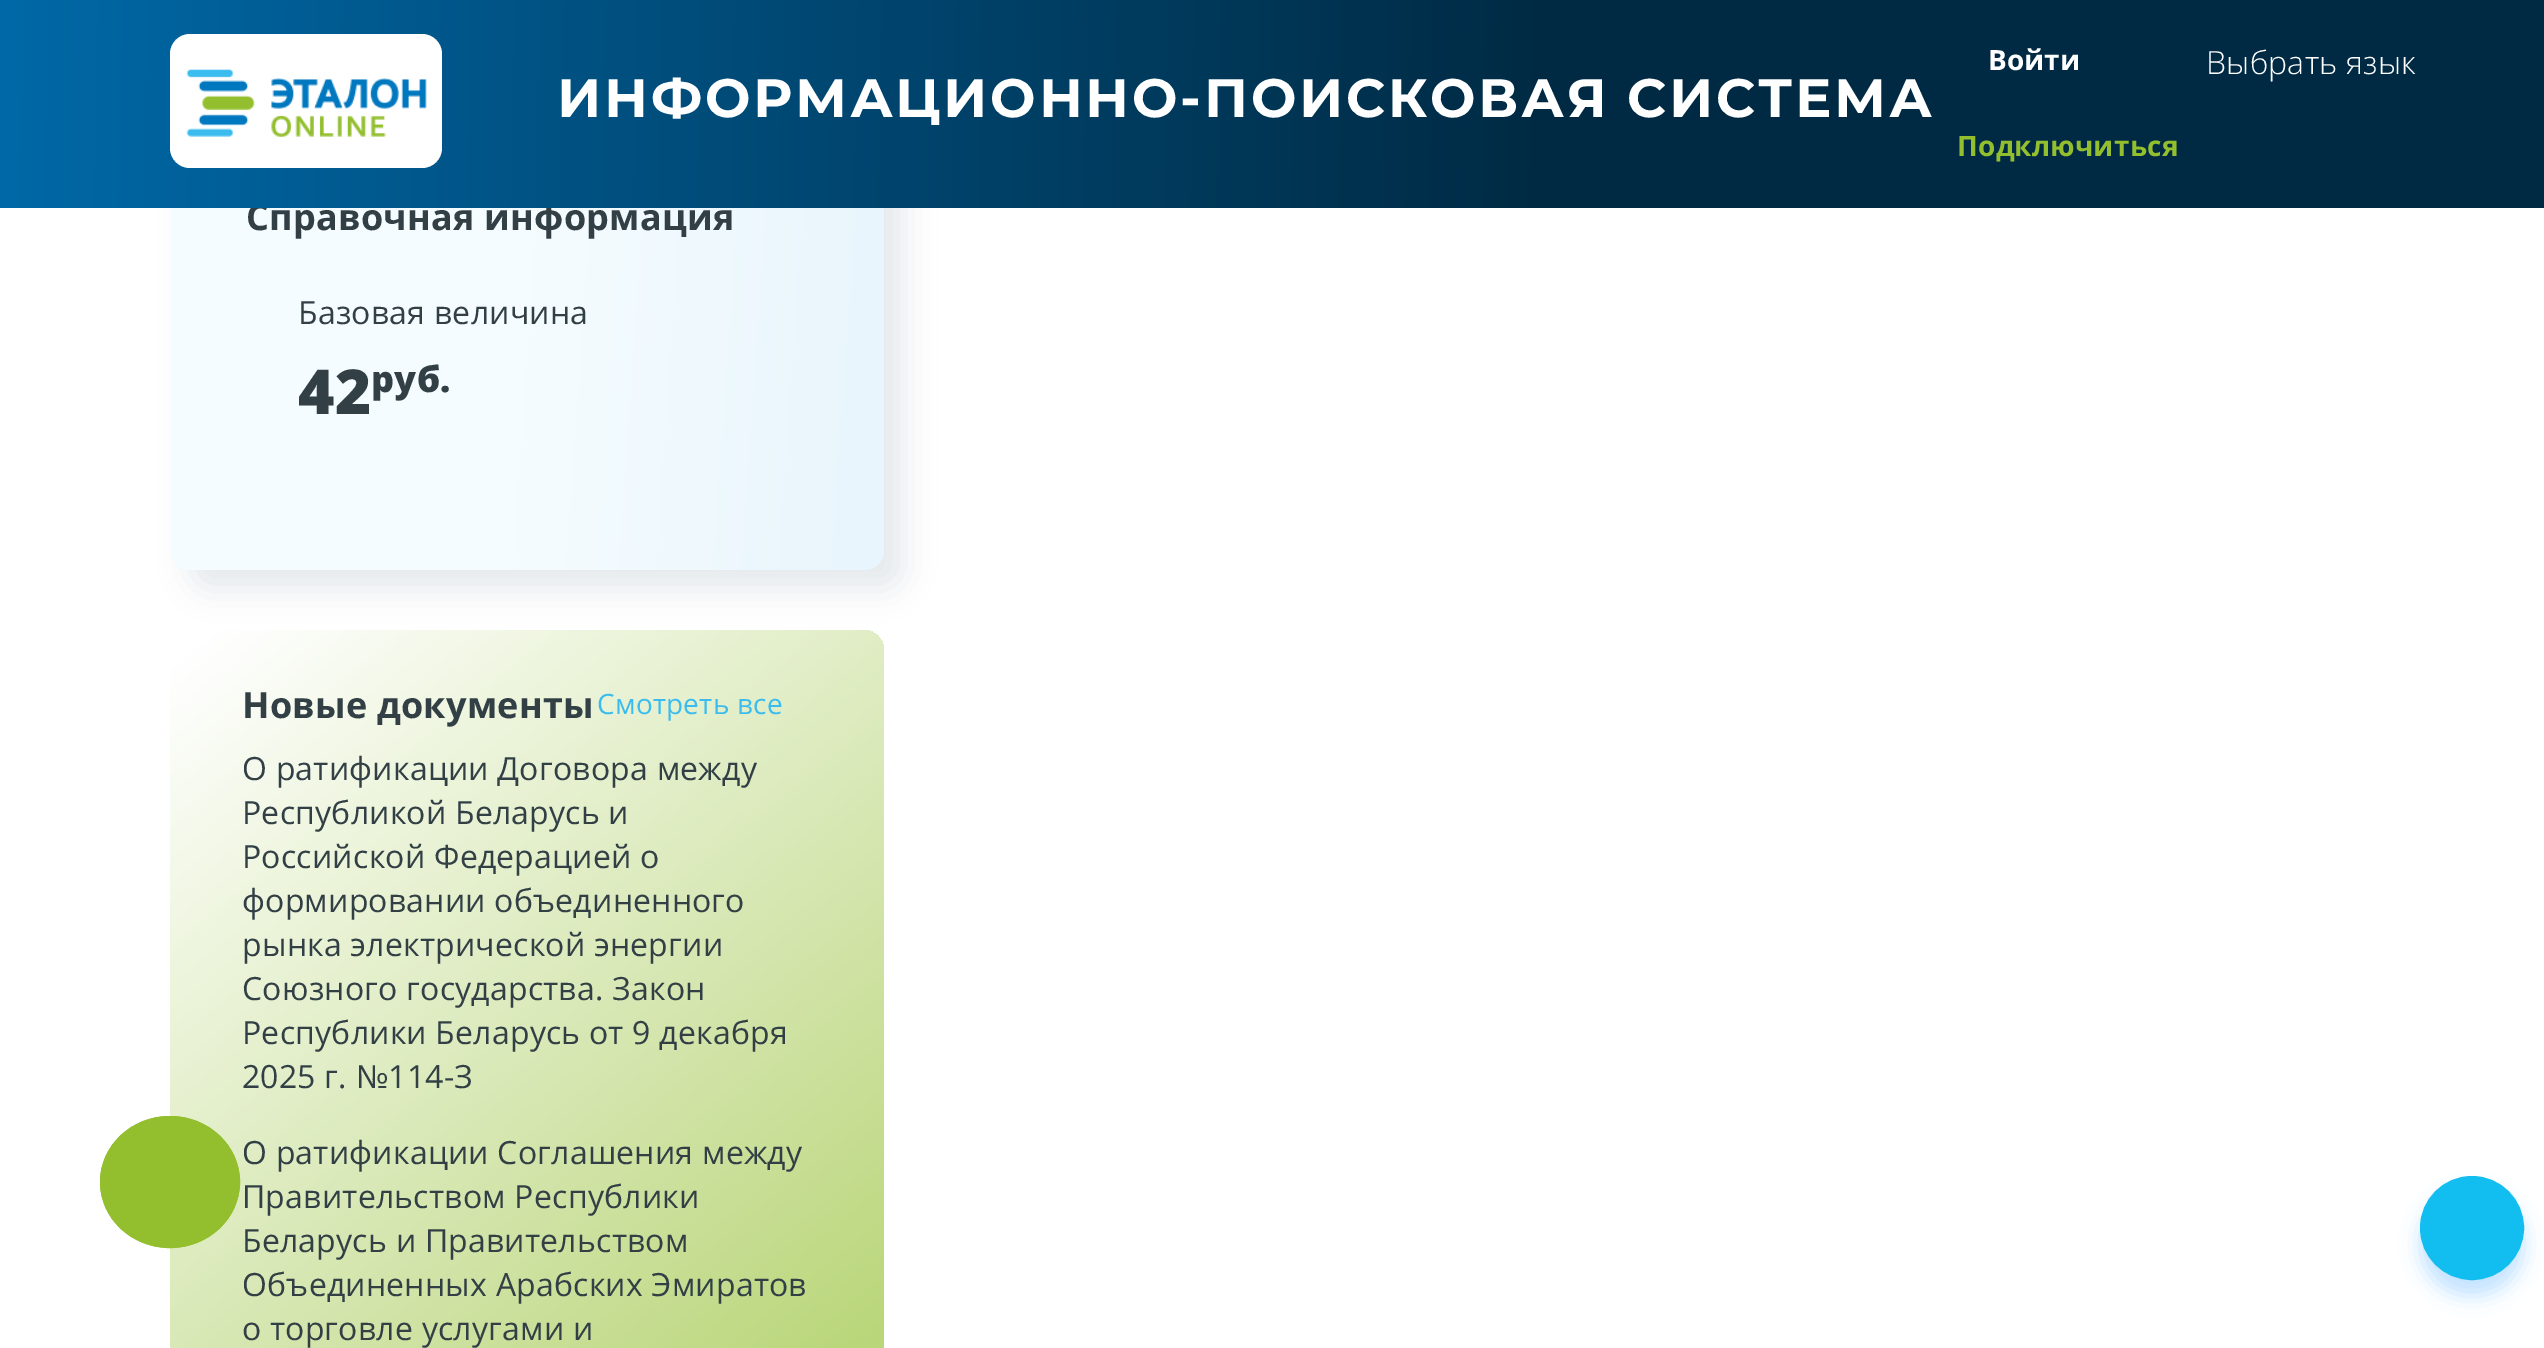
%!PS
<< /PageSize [2544 1348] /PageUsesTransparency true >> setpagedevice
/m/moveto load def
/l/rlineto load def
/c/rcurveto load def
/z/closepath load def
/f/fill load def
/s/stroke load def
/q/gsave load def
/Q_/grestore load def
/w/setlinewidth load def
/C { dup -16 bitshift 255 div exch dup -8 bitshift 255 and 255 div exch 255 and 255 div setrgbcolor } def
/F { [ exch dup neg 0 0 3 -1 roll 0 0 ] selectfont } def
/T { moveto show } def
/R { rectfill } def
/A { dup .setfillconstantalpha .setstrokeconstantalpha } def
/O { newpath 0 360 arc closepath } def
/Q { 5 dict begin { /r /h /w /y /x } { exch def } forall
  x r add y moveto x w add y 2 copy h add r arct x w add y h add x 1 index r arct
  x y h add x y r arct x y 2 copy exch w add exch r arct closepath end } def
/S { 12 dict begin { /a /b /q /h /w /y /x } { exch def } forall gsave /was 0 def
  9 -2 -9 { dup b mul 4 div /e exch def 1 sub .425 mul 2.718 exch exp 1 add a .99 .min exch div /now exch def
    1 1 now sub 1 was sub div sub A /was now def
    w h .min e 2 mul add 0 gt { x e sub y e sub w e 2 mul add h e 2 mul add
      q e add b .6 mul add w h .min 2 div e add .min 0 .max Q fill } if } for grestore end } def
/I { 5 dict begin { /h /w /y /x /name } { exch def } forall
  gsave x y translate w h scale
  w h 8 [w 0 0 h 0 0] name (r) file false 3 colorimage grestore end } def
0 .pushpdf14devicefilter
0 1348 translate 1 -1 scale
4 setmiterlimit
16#FFFFFF C
0 0 2544 1348 R
16#002A43 C
190 166 714 424 20 15 .1 S
q 170 146 714 424 20 Q clip newpath
<< /ShadingType 2 /ColorSpace /DeviceRGB /Coords [157 332 1946 456] /Extend [true true] /Function << /FunctionType 3 /Domain [0 1] /Functions [<< /FunctionType 2 /Domain [0 1] /C0 [.961 .988 1] /C1 [.961 .988 1] /N 1 >> << /FunctionType 2 /Domain [0 1] /C0 [.961 .988 1] /C1 [.765 .886 .949] /N 1 >>] /Bounds [.2] /Encode [0 1 0 1] >> >> shfill Q_
/OpenSans-Bold 36 F
16#324046 C
246 230 m .2 0 (Справочная информация) ashow
q 0 0 m 2544 0 l 0 208 l -2544 0 l z clip newpath
<< /ShadingType 2 /ColorSpace /DeviceRGB /Coords [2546 130 -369 70] /Extend [true true] /Function << /FunctionType 3 /Domain [0 1] /Functions [<< /FunctionType 2 /Domain [0 1] /C0 [0 .165 .263] /C1 [0 .165 .263] /N 1 >> << /FunctionType 2 /Domain [0 1] /C0 [0 .165 .263] /C1 [0 .471 .749] /N 1 >>] /Bounds [.34] /Encode [0 1 0 1] >> >> shfill Q_
16#FFFFFF C
170 34 272 134 20 Q f
(1.rgb) 186 69 241 68 I
/Montserrat-Bold 54 F
557 117 m 2.7 0 (ИНФОРМАЦИОННО-ПОИСКОВАЯ СИСТЕМА) ashow
/OpenSans-Bold 28 F
(Войти) 1988 70 T
16#93BF2F C
1957 156 m .2 0 (Подключиться) ashow
/OpenSans-Light 32 F
16#FFFFFF C
2206 74 m .2 0 (Выбрать язык) ashow
q 170 630 714 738 20 Q clip newpath
<< /ShadingType 2 /ColorSpace /DeviceRGB /Coords [1068 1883 92 694] /Extend [true true] /Function << /FunctionType 3 /Domain [0 1] /Functions [<< /FunctionType 2 /Domain [0 1] /C0 [.576 .749 .184] /C1 [1 1 1] /N 1 >> << /FunctionType 2 /Domain [0 1] /C0 [1 1 1] /C1 [1 1 1] /N 1 >>] /Bounds [.98] /Encode [0 1 0 1] >> >> shfill Q_
16#93BF2F C
170 1116 m 38.5 0 70 29.5 70 66 c 0 36.5 -31.5 66 -70 66 c -38.5 0 -70 -29.5 -70 -66 c 0 -36.5 31.5 -66 70 -66 c z f
2 w
170 1117 m 38 0 69 29 69 65 c 0 36 -31 65 -69 65 c -38 0 -69 -29 -69 -65 c 0 -36 31 -65 69 -65 c z s
/OpenSans-Regular 32 F
16#324046 C
298 324 m .2 0 (Базовая величина) ashow
/OpenSans-ExtraBold 62 F
298 414 m .2 0 (42) ashow
/OpenSans-ExtraBold 36 F
371 392 m .2 0 (руб.) ashow
/OpenSans-Bold 36 F
242 718 m .2 0 (Новые документы) ashow
/OpenSans-Regular 28 F
16#3ABCEE C
597 714 m .2 0 (Смотреть все) ashow
/OpenSans-Regular 32 F
16#324046 C
242 780 m .2 0 (О ратификации Договора между) ashow
242 824 m .2 0 (Республикой Беларусь и) ashow
242 868 m .2 0 (Российской Федерацией о) ashow
242 912 m .2 0 (формировании объединенного) ashow
242 956 m .2 0 (рынка электрической энергии) ashow
242 1000 m .2 0 (Союзного государства. Закон) ashow
242 1044 m .2 0 (Республики Беларусь от 9 декабря) ashow
242 1088 m .2 0 (2025 г. №114-З) ashow
242 1164 m .2 0 (О ратификации Соглашения между) ashow
242 1208 m .2 0 (Правительством Республики) ashow
242 1252 m .2 0 (Беларусь и Правительством) ashow
242 1296 m .2 0 (Объединенных Арабских Эмиратов) ashow
242 1340 m .2 0 (о торговле услугами и) ashow
16#38A3FD C
2420 1192 104 104 52 10 .3 S
16#12BEF0 C
2472 1228 50 O q f Q_
4 w
s
.poppdf14devicefilter showpage
